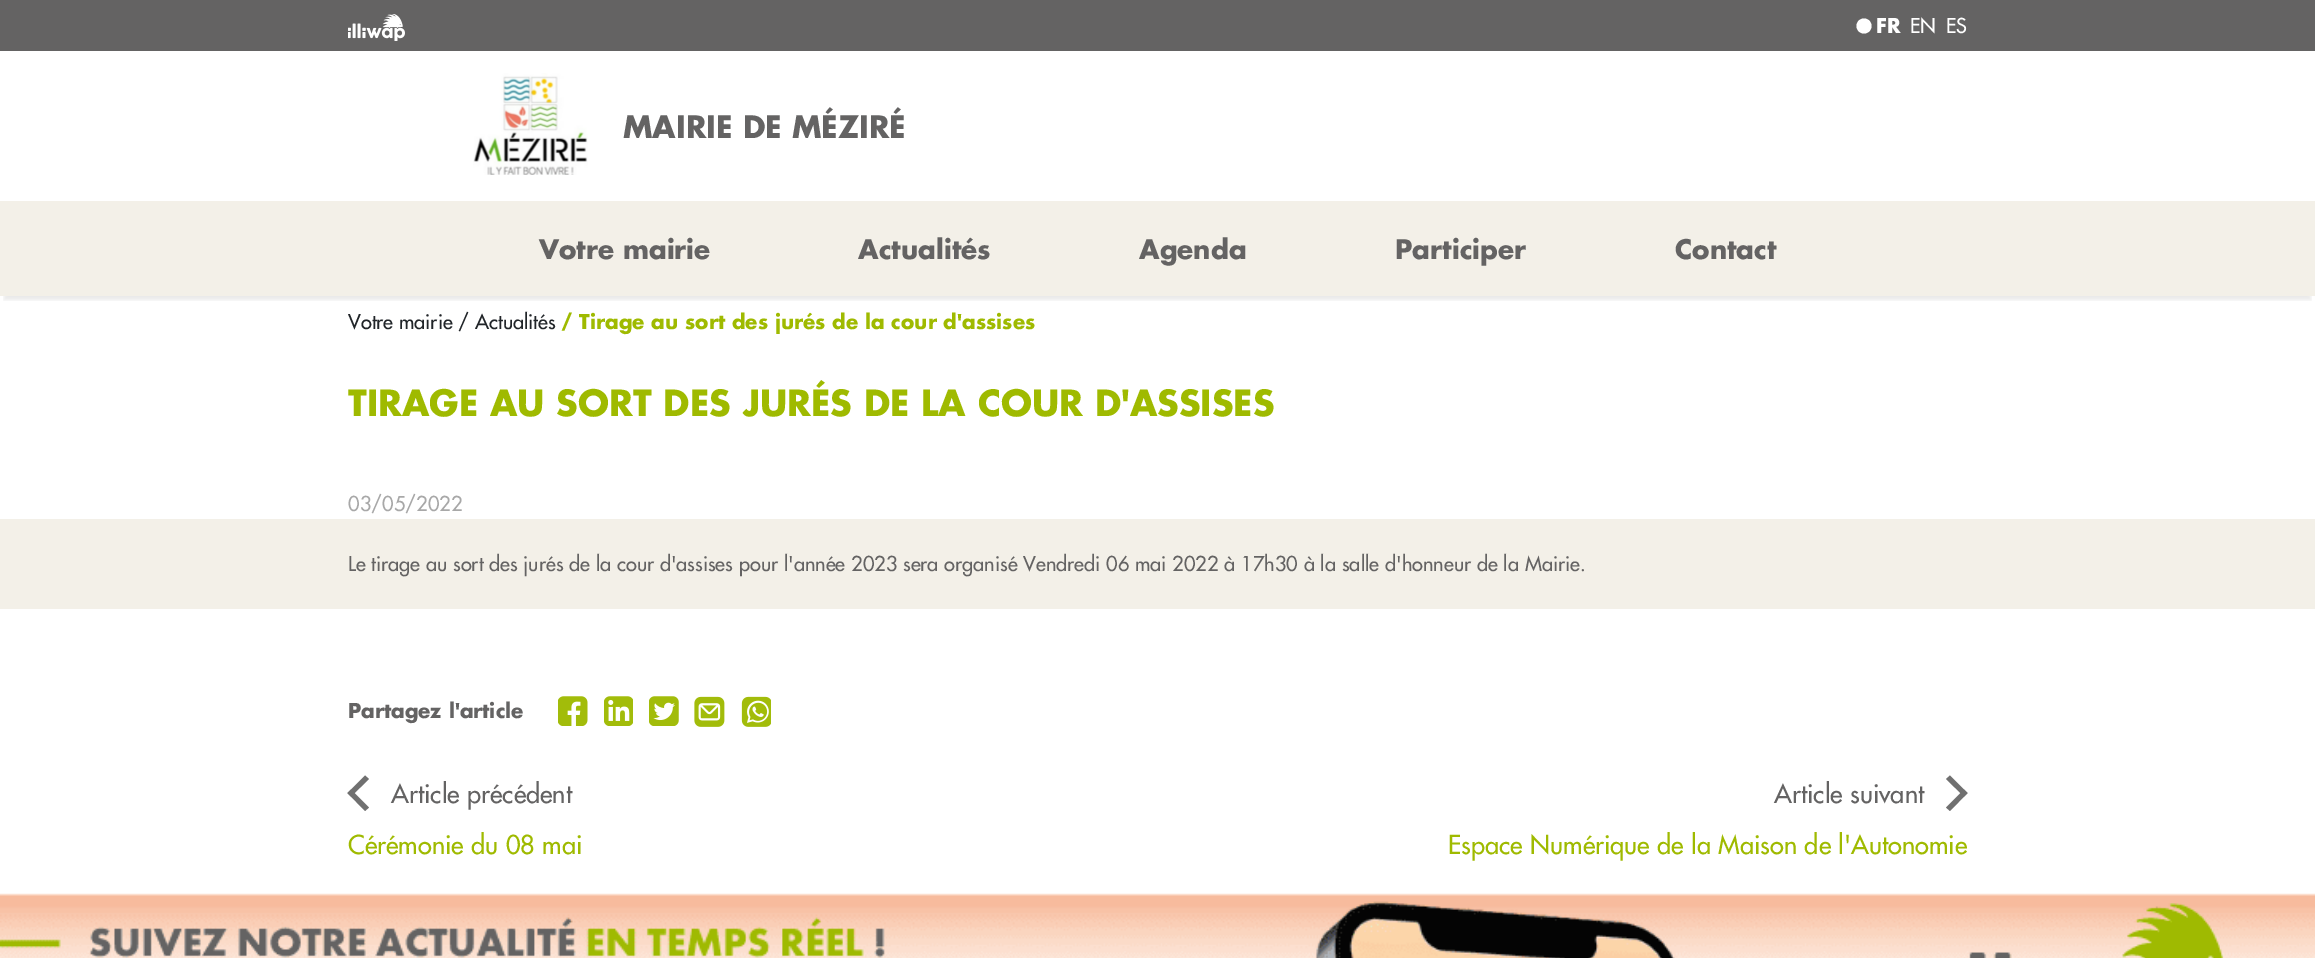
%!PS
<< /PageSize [2315 958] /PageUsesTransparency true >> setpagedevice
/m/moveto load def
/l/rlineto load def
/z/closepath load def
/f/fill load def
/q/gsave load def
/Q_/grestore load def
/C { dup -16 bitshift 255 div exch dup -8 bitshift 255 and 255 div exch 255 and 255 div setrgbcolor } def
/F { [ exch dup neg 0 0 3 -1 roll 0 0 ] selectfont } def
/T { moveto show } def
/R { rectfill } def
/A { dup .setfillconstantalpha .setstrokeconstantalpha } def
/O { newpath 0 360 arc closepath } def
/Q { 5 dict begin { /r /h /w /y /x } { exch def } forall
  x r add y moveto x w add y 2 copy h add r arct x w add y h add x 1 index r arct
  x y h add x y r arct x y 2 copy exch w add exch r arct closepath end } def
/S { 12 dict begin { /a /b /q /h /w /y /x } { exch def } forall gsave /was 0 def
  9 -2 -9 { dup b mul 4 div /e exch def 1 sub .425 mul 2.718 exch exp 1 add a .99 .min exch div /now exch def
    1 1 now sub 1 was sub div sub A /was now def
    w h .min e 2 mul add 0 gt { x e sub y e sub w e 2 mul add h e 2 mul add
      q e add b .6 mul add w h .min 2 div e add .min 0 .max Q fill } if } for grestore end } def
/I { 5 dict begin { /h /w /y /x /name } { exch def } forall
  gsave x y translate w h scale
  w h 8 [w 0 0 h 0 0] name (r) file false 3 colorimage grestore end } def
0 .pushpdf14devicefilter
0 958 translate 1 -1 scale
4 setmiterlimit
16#FFFFFF C
0 0 2315 958 R
q
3 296 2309 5 rectclip
16#000000 C
4 11 2307 289 0 2 .08 S
Q_
16#646363 C
0 0 2315 51 R
(1.rgb) 348 14 57 27 I
16#FFFFFF C
1864 26 7.5 O f
/Futura-Bold 20 F
(FR) 1876 33 T
/Futura-Regular 20 F
(EN) 1910 33 T
(ES) 1946 33 T
(2.rgb) 473 73 115 102 I
/Futura-Bold 30 F
16#646363 C
(MAIRIE DE MÉZIRÉ) 623 138 T
16#F3F0E8 C
0 201 2315 95 R
/Futura-Bold 26.25 F
16#646363 C
(Votre mairie) 539 259 T
(Actualités) 858 259 T
(Agenda) 1139 259 T
(Participer) 1395 259 T
(Contact) 1675 259 T
/Futura-Regular 20 F
16#212529 C
(Votre mairie / Actualités) 348 329 T
/Futura-Bold 20 F
16#9FBA00 C
(/ Tirage au sort des jurés de la cour d'assises) 561 329 T
/Futura-Bold 35 F
(TIRAGE AU SORT DES JURÉS DE LA COUR D'ASSISES) 348 416 T
/Futura-Regular 20 F
16#A8A8A8 C
(03/05/2022) 348 511 T
16#F3F0E8 C
0 519 2315 90 R
16#646363 C
(Le tirage au sort des jurés de la cour d'assises pour l'année 2023 sera organisé Vendredi 06 mai 2022 à 17h30 à la salle d'honneur de la Mairie.) 348 571 T
/Futura-Bold 20 F
(Partagez l'article) 348 718 T
(3.rgb) 558 696 30 30 I
(4.rgb) 604 696 29 30 I
(5.rgb) 649 696 30 30 I
(6.rgb) 694 696 31 31 I
(7.rgb) 741 696 30 31 I
16#707070 C
365 811 m -17.5 -18 l 3.5 -3.5 l 18 18 l z f
347.5 793 m 17.5 -17.5 l 4 3.5 l -18 17.5 l z f
/Futura-Regular 25.4 F
16#646363 C
(Article précédent) 391 803 T
16#707070 C
1950 775.5 m 17.5 17.5 l -3.5 3.5 l -18 -17.5 l z f
1967.5 793 m -17.5 18 l -4 -3.5 l 18 -18 l z f
16#646363 C
(Article suivant) 1774 803 T
16#9FBA00 C
(Cérémonie du 08 mai) 348 854 T
(Espace Numérique de la Maison de l'Autonomie) 1448 854 T
(8.rgb) 0 893 2315 65 I
.poppdf14devicefilter showpage
